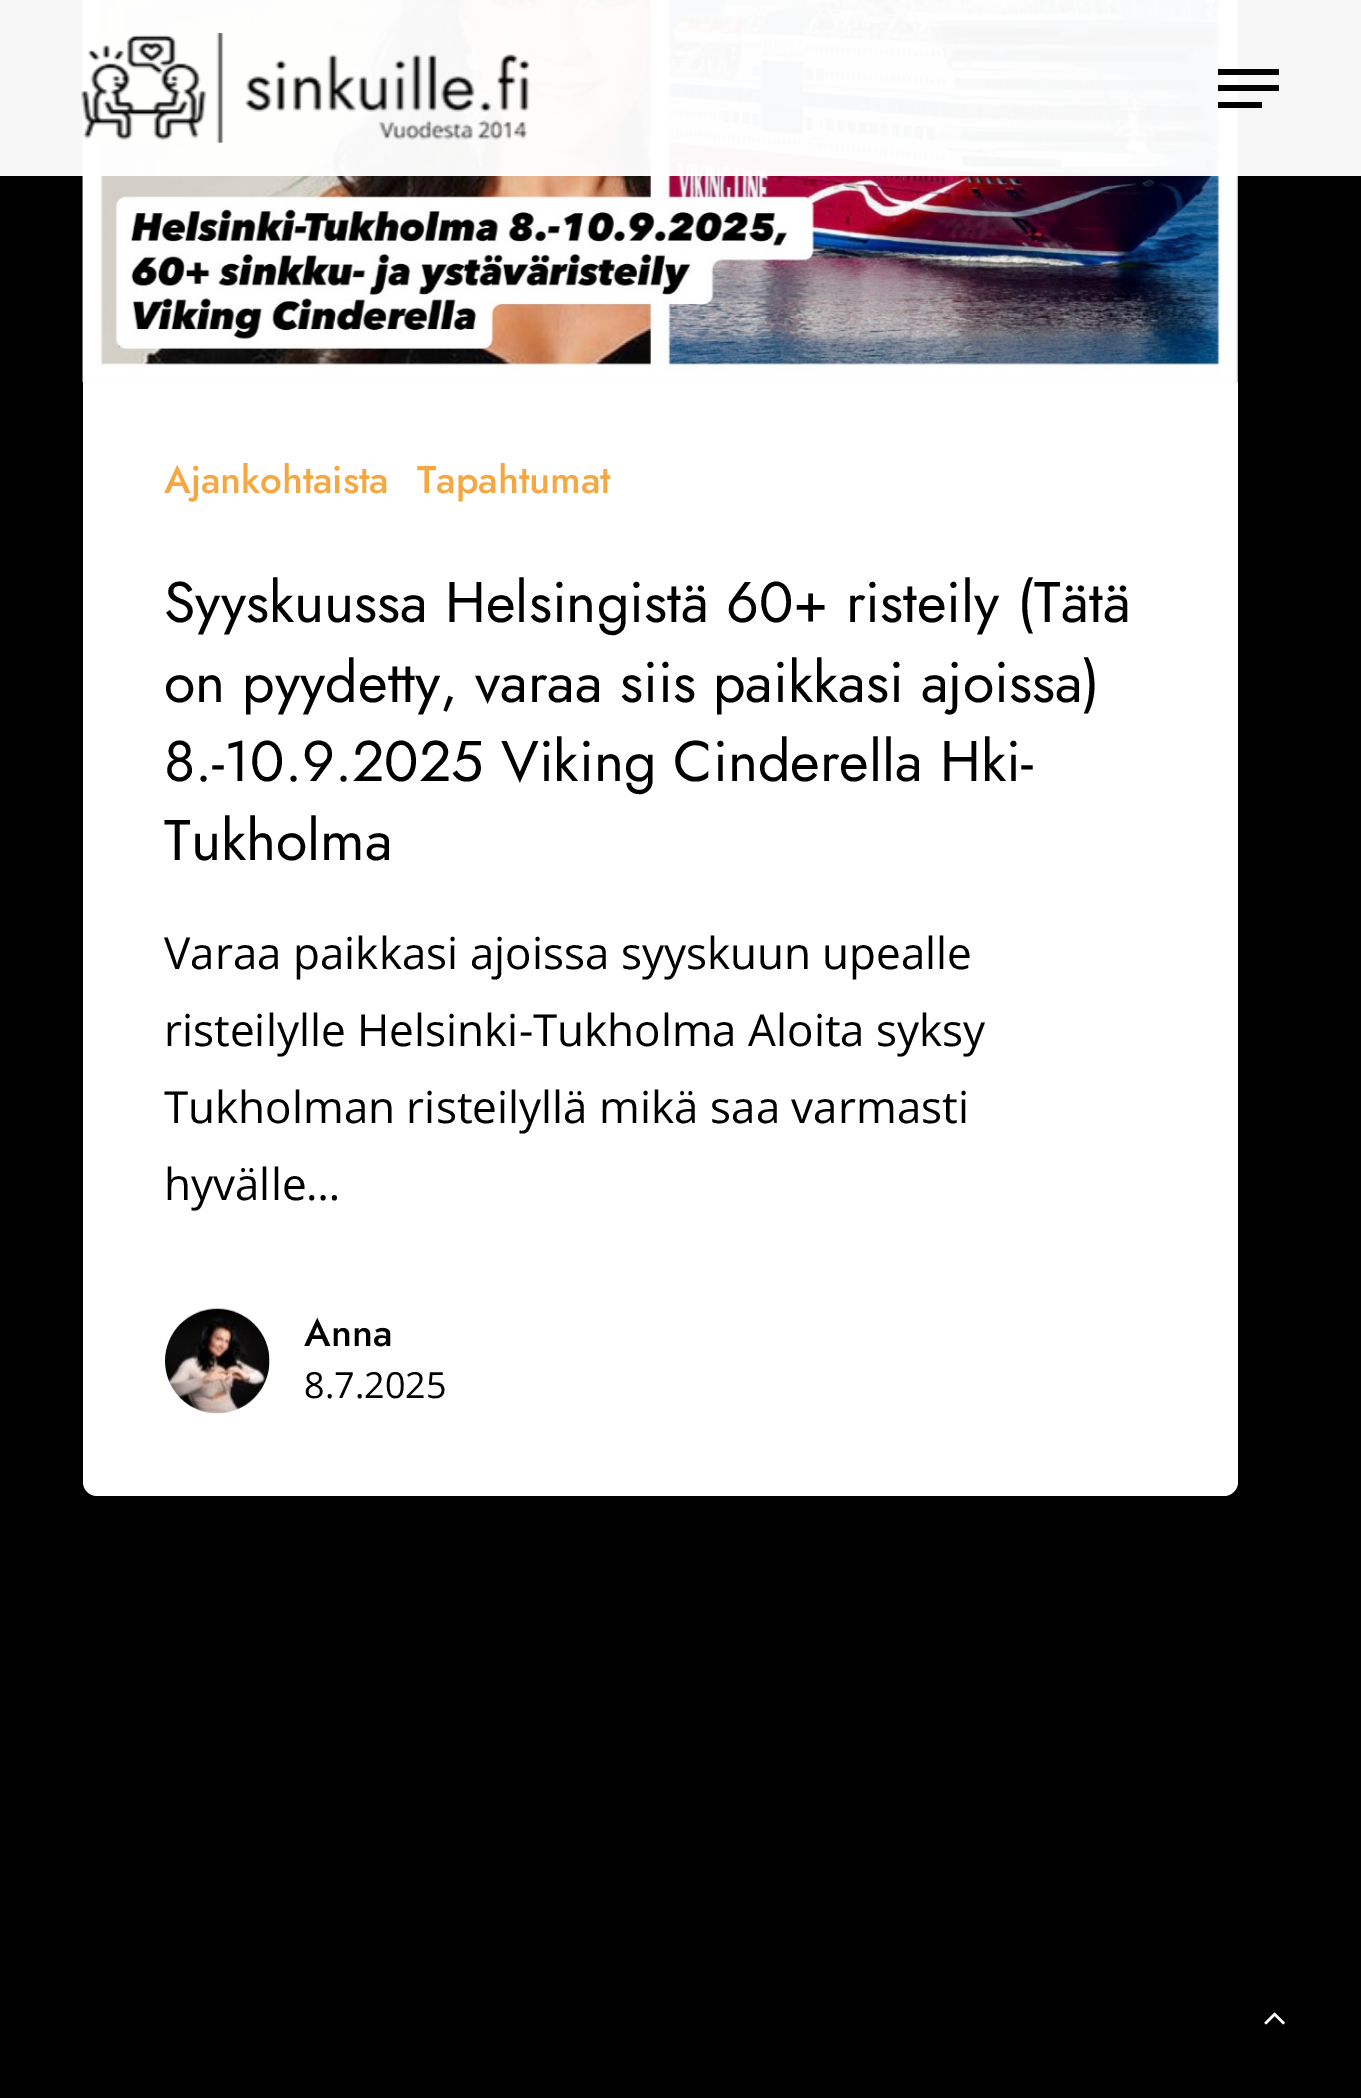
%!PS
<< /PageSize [1361 2098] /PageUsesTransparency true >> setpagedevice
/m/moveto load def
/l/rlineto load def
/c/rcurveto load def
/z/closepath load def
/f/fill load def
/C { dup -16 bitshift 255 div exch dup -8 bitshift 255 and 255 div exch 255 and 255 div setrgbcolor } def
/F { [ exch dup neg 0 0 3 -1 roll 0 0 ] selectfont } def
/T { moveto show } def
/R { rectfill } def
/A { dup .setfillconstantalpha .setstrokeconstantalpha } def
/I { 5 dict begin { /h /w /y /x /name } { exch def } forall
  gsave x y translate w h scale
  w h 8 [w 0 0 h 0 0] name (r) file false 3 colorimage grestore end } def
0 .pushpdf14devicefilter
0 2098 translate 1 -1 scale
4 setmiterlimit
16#000000 C
0 0 1361 2098 R
(2.rgb) 82 0 1156 382 I
0.97 A
16#FFFFFF C
0 0 1361 176 R
1 A
(1.rgb) 81 33 449 110 I
16#000000 C
1218 69 61 6 R
1218 102 44 6 R
1218 85 61 6 R
16#FFFFFF C
83 382 1155 154 R
/Jost-Medium 38.5 F
16#F5A742 C
(Ajankohtaista) 164 493 T
(Tapahtumat) 417 493 T
16#FFFFFF C
83 536 m 1155 0 l 0 946 l 0 7.5 -6.5 14 -14 14 c -1127 0 l -7.5 0 -14 -6.5 -14 -14 c z f
/Jost-Regular 57.25 F
16#000000 C
(Syyskuussa Helsingistä 60+ risteily \(Tätä) 164 622 T
(on pyydetty, varaa siis paikkasi ajoissa\)) 164 702 T
(8.-10.9.2025 Viking Cinderella Hki-) 164 781 T
(Tukholma) 164 860 T
/OpenSans-Regular 44 F
(Varaa paikkasi ajoissa syyskuun upealle) 164 969 T
(risteilylle Helsinki-Tukholma Aloita syksy) 164 1046 T
(Tukholman risteilyllä mikä saa varmasti) 164 1123 T
(hyvälle…) 164 1200 T
(3.rgb) 165 1308 105 106 I
/Jost-Medium 38.5 F
(Anna) 304 1346 T
/OpenSans-Regular 36 F
(8.7.2025) 304 1398 T
(4.rgb) 1264 2012 21 13 I
.poppdf14devicefilter showpage
